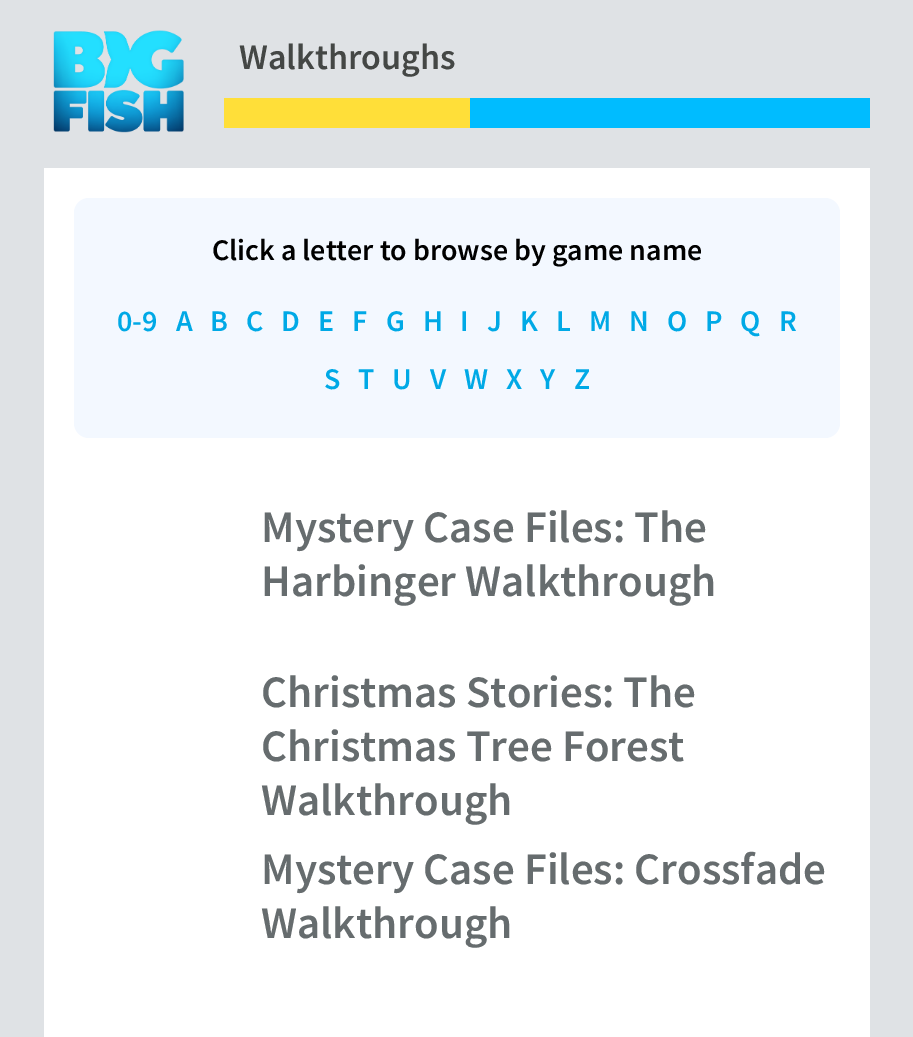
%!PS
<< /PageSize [913 1037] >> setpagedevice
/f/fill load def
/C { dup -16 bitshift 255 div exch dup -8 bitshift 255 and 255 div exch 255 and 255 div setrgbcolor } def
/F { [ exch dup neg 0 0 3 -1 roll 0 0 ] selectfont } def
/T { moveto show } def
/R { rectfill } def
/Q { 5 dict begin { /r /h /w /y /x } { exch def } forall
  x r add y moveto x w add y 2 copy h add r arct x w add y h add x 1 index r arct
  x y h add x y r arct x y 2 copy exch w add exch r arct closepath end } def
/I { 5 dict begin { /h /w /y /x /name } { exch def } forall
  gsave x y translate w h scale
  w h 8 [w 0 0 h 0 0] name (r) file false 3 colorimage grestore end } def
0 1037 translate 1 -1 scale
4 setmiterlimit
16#DFE2E5 C
0 0 913 1037 R
(1.rgb) 53 30 131 103 I
16#00BCFF C
470 98 400 30 R
16#FFDF39 C
224 98 246 30 R
/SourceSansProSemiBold-SemiBold 36 F
16#444745 C
(Walkthroughs) 239 69 T
16#FFFFFF C
44 168 826 869 R
16#F3F8FF C
74 198 766 240 15 Q f
/SourceSansProSemiBold-SemiBold 30 F
16#000000 C
(Click a letter to browse by game name) 212 260 T
16#00A9E6 C
(0-9) 117 331 T
(A) 176 331 T
(B) 210 331 T
(C) 246 331 T
(D) 281 331 T
(E) 318 331 T
(F) 352 331 T
(G) 386 331 T
(H) 423 331 T
(I) 460 331 T
(J) 487 331 T
(K) 520 331 T
(L) 556 331 T
(M) 589 331 T
(N) 629 331 T
(O) 667 331 T
(P) 705 331 T
(Q) 740 331 T
(R) 779 331 T
(S) 324 389 T
(T) 358 389 T
(U) 392 389 T
(V) 430 389 T
(W) 464 389 T
(X) 506 389 T
(Y) 540 389 T
(Z) 574 389 T
/SourceSansProSemiBold-SemiBold 45 F
16#666C6E C
(Mystery Case Files: The) 261 542 T
(Harbinger Walkthrough) 261 596 T
(Christmas Stories: The) 261 707 T
(Christmas Tree Forest) 261 761 T
(Walkthrough) 261 815 T
(Mystery Case Files: Crossfade) 261 884 T
(Walkthrough) 261 938 T
showpage
